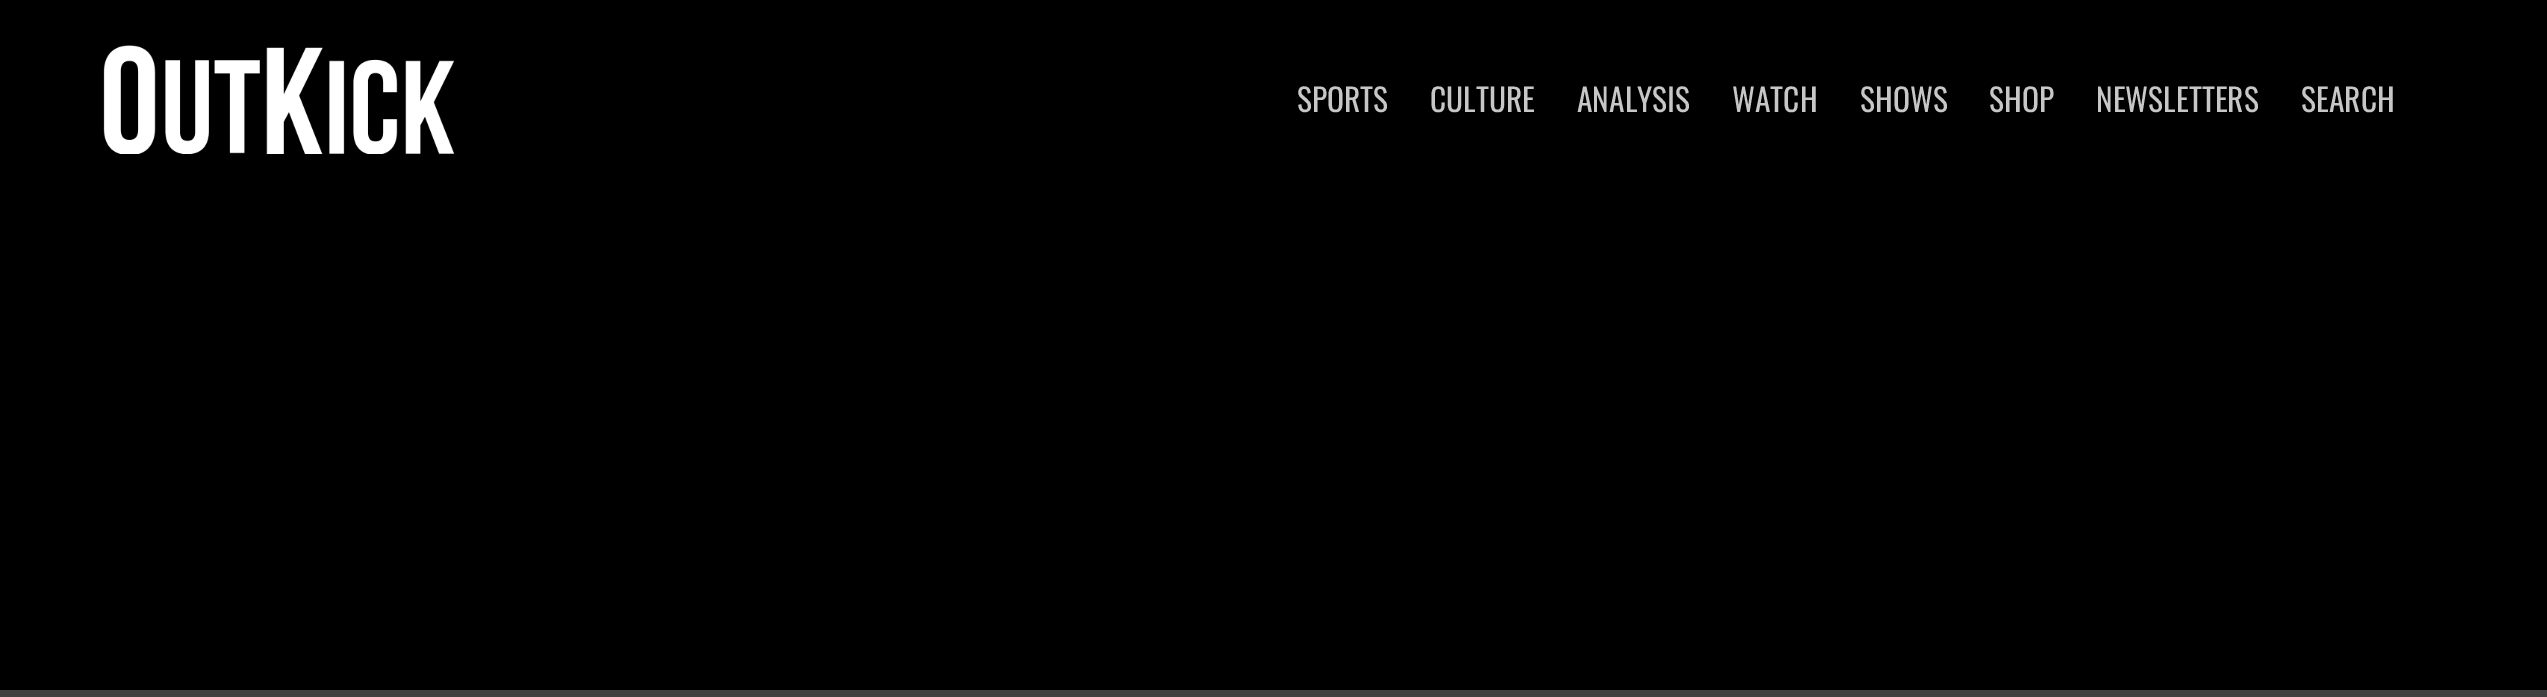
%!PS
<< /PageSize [2547 697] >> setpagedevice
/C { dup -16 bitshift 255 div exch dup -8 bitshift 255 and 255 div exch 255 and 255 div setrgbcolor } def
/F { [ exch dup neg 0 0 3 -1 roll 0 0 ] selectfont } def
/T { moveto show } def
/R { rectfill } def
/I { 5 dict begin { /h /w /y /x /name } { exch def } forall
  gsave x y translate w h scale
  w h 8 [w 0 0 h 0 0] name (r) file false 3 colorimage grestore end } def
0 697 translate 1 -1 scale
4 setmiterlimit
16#404040 C
0 0 2547 697 R
16#000000 C
0 0 2547 690 R
(1.rgb) 103 45 352 109 I
/Oswald-Regular 31.5 F
16#C7C7C7 C
(SPORTS) 1297 112 T
(CULTURE) 1430 112 T
(ANALYSIS) 1577 112 T
(WATCH) 1732 112 T
(SHOWS) 1860 112 T
(SHOP) 1989 112 T
(NEWSLETTERS) 2096 112 T
(SEARCH) 2301 112 T
showpage
